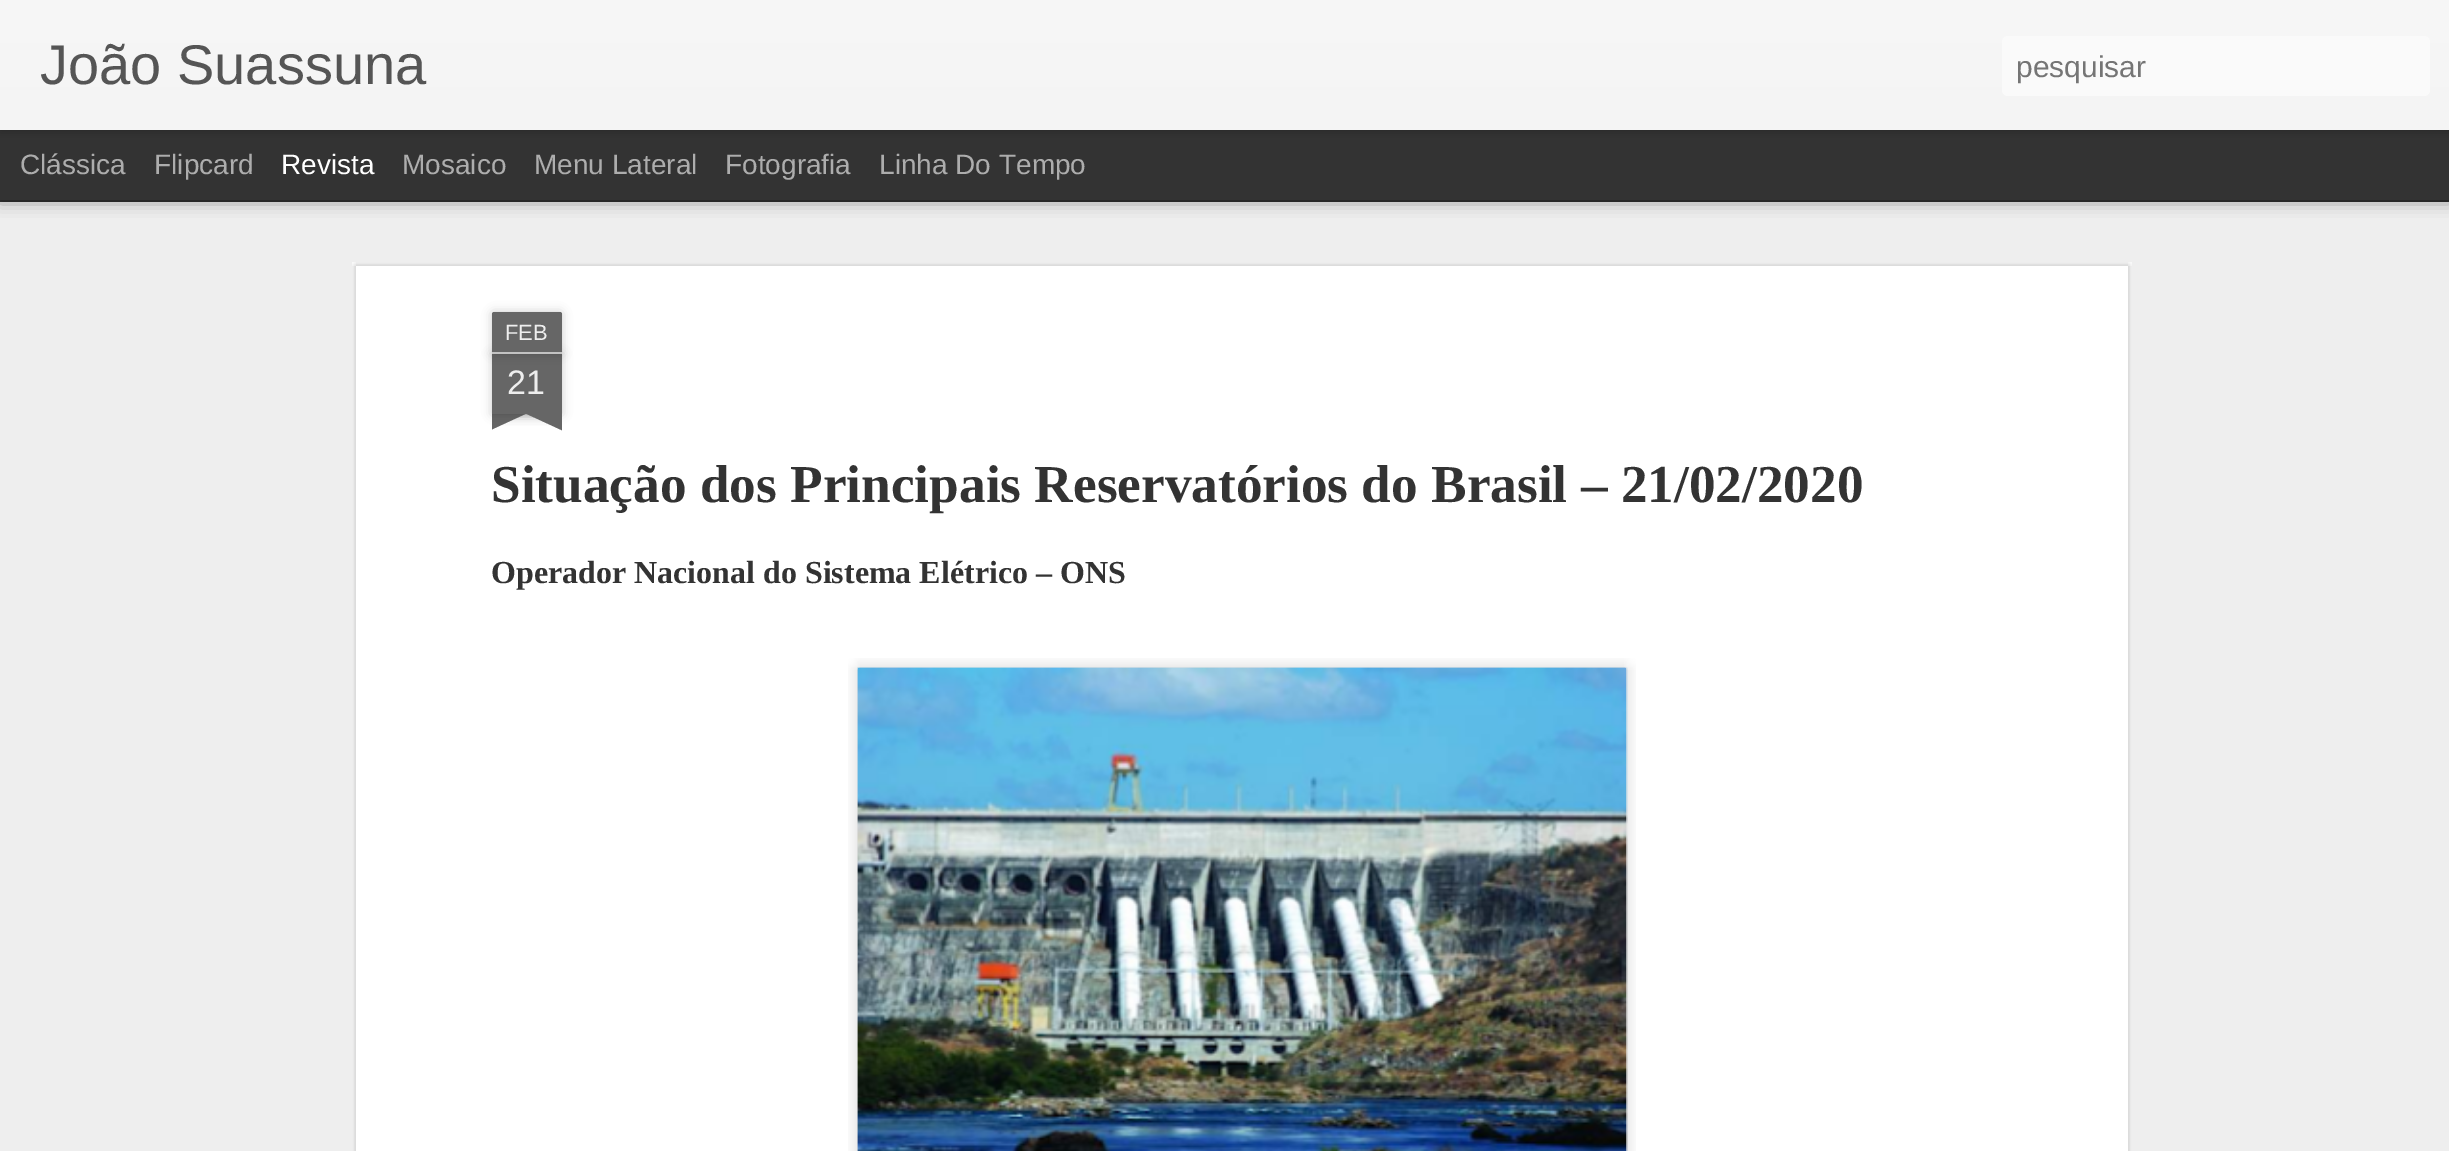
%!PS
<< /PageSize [2449 1151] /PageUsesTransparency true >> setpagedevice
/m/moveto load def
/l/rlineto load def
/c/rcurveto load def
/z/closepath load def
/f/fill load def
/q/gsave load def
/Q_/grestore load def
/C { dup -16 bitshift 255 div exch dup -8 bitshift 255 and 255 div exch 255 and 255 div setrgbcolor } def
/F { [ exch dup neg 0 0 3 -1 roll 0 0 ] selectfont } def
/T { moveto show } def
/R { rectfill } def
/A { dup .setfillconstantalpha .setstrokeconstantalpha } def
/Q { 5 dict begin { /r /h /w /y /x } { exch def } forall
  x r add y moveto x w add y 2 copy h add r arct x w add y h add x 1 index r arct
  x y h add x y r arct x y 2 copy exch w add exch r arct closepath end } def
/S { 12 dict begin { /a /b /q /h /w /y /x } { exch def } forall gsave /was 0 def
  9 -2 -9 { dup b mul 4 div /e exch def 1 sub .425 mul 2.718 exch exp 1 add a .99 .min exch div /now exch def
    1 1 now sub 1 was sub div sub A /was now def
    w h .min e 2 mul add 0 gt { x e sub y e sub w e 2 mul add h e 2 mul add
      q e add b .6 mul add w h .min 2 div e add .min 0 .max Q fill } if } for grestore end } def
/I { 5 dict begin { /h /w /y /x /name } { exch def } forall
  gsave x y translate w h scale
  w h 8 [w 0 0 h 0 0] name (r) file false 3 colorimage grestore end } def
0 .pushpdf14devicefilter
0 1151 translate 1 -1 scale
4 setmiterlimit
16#333333 C
0 0 2449 1151 R
16#EEEEEE C
0 202 2449 949 R
16#000000 C
0 130 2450 70 0 8 .5 S
16#333333 C
0 130 2449 70 R
16#000000 C
0 0 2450 130 0 5 .3 S
q 0 0 m 2449 0 l 0 130 l -2449 0 l z clip newpath
<< /ShadingType 2 /ColorSpace /DeviceRGB /Coords [0 0 0 130] /Extend [true true] /Function << /FunctionType 2 /Domain [0 1] /C0 [.969 .969 .969] /C1 [.957 .957 .957] /N 1 >> >> shfill Q_
/LiberationSans-Regular 56 F
16#555555 C
(João Suassuna) 40 84 T
16#FAFAFA C
2002 36 428 60 6 Q f
/LiberationSans-Regular 30 F
16#757575 C
(pesquisar) 2016 77 T
/LiberationSans-Regular 28 F
16#ADADAD C
(Clássica) 20 174 T
(Flipcard) 154 174 T
16#FFFFFF C
(Revista) 281 174 T
16#ADADAD C
(Mosaico) 402 174 T
(Menu Lateral) 534 174 T
(Fotografia) 725 174 T
(Linha Do Tempo) 879 174 T
16#FFFFFF C
352 262 1780 889 R
(1.rgb) 352 262 1780 889 I
16#000000 C
492 354 70 60 0 5 .2 S
16#666666 C
492 354 70 60 R
16#000000 C
492 312 70 42 2 5 .2 S
16#666666 C
494 312 m 66 0 l 1 0 2 1 2 2 c 0 40 l -70 0 l 0 -40 l 0 -1 1 -2 2 -2 c z f
16#C2C2C2 C
492 352 70 2 R
/LiberationSans-Regular 22 F
16#EEEEEE C
(FEB) 505 340 T
/LiberationSans-Regular 34 F
(21) 507 394 T
q
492 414 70 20 rectclip
16#000000 C
474 394 100 20 0 5 .2 S
Q_
q
492 414 70 20 rectclip
16#666666 C
473 416 m 91 -42 l 9 18 l -91 42 l z f
Q_
q
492 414 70 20 rectclip
16#000000 C
480 394 100 20 0 5 .2 S
Q_
q
492 414 70 20 rectclip
16#666666 C
488 374 m 91 42 l -9 18 l -91 -42 l z f
Q_
/LiberationSerif-Bold 53.3 F
16#333333 C
(Situação dos Principais Reservatórios do Brasil – 21/02/2020) 491 502 T
/LiberationSerif-Bold 32 F
(Operador Nacional do Sistema Elétrico – ONS) 491 583 T
(2.rgb) 848 658 788 493 I
(3.rgb) 857 667 771 484 I
.poppdf14devicefilter showpage
